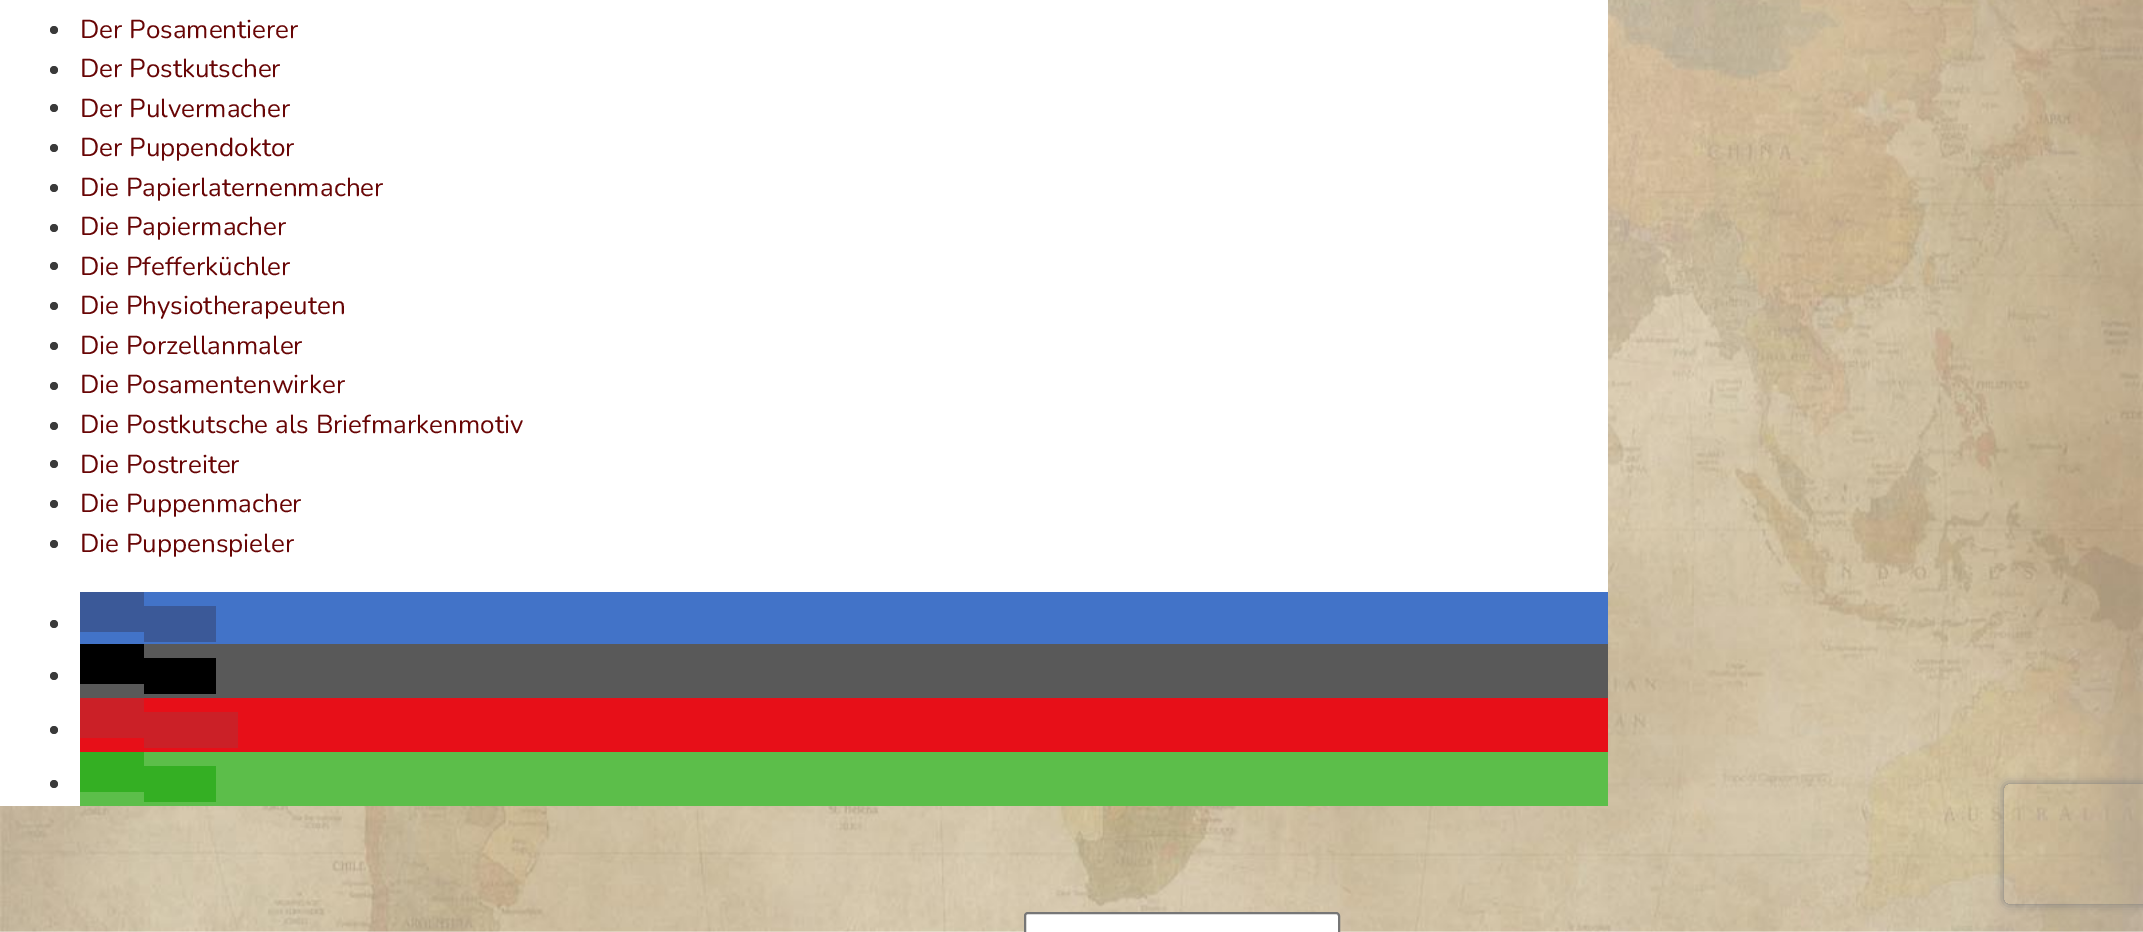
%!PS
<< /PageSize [2143 932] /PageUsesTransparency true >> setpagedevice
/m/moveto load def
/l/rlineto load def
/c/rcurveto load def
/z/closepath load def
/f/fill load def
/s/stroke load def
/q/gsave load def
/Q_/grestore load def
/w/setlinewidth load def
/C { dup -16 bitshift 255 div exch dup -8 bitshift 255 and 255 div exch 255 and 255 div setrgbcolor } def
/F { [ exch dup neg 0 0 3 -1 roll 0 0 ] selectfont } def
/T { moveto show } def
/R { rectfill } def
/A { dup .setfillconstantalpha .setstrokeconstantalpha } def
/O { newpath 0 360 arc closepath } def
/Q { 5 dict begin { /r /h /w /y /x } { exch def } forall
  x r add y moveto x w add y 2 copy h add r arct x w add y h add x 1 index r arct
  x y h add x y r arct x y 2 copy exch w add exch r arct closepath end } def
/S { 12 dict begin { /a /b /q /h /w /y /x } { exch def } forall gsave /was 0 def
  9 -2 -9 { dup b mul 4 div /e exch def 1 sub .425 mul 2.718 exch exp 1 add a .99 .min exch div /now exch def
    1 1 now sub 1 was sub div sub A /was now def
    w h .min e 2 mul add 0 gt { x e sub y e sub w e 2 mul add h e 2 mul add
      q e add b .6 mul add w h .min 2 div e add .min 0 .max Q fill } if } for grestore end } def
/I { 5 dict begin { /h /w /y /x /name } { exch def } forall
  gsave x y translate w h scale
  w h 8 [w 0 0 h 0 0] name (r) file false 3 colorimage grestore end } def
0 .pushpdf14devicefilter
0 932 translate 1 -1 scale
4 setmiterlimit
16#FFFFFF C
0 0 2143 932 R
(1.rgb) 0 0 2143 932 I
0 0 1608 806 R
16#3A3A3A C
54 30 4 O f
/Nunito-ExtraLight 26 F
16#680505 C
(Der Posamentierer) 80 38 T
16#3A3A3A C
54 70 4 O f
16#680505 C
(Der Postkutscher) 80 77 T
16#3A3A3A C
54 108 4 O f
16#680505 C
(Der Pulvermacher) 80 117 T
16#3A3A3A C
54 148 4 O f
16#680505 C
(Der Puppendoktor) 80 156 T
16#3A3A3A C
54 188 4 O f
16#680505 C
(Die Papierlaternenmacher) 80 196 T
16#3A3A3A C
54 228 4 O f
16#680505 C
(Die Papiermacher) 80 235 T
16#3A3A3A C
54 266 4 O f
16#680505 C
(Die Pfefferküchler) 80 275 T
16#3A3A3A C
54 306 4 O f
16#680505 C
(Die Physiotherapeuten) 80 314 T
16#3A3A3A C
54 346 4 O f
16#680505 C
(Die Porzellanmaler) 80 354 T
16#3A3A3A C
54 386 4 O f
16#680505 C
(Die Posamentenwirker) 80 393 T
16#3A3A3A C
54 426 4 O f
16#680505 C
(Die Postkutsche als Briefmarkenmotiv) 80 433 T
16#3A3A3A C
54 464 4 O f
16#680505 C
(Die Postreiter) 80 473 T
16#3A3A3A C
54 504 4 O f
16#680505 C
(Die Puppenmacher) 80 512 T
16#3A3A3A C
54 544 4 O f
16#680505 C
(Die Puppenspieler) 80 552 T
16#4273C8 C
80 592 1528 52 R
16#3A3A3A C
54 624 4 O f
16#3B5998 C
80 592 64 40 R
144 606 72 36 R
16#595959 C
80 644 1528 54 R
16#3A3A3A C
54 676 4 O f
16#000000 C
80 644 64 40 R
144 658 72 36 R
16#E70F18 C
80 698 1528 54 R
16#3A3A3A C
54 730 4 O f
16#CB2027 C
80 698 64 40 R
144 712 94 36 R
16#5CBE4A C
80 752 1528 54 R
16#3A3A3A C
54 784 4 O f
16#34AF23 C
80 752 64 40 R
144 766 72 36 R
16#FFFFFF C
1025 913 314 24 3 Q q f Q_
16#767676 C
2 w
s
q
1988 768 m 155 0 l 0 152 l -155 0 l z 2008 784 m 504 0 l 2 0 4 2 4 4 c 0 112 l 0 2 -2 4 -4 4 c -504 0 l -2 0 -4 -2 -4 -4 c 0 -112 l 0 -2 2 -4 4 -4 c z eoclip newpath
16#808080 C
2004 784 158 120 4 5 1 S
Q_
.poppdf14devicefilter showpage
